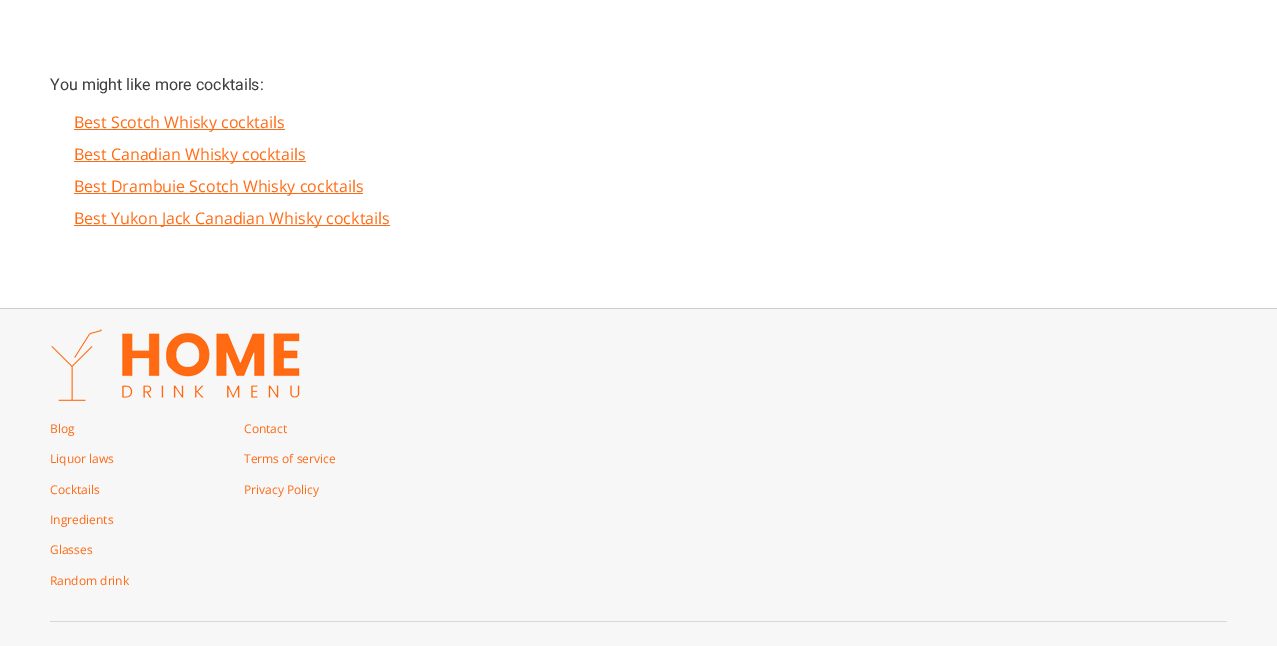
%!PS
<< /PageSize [1277 646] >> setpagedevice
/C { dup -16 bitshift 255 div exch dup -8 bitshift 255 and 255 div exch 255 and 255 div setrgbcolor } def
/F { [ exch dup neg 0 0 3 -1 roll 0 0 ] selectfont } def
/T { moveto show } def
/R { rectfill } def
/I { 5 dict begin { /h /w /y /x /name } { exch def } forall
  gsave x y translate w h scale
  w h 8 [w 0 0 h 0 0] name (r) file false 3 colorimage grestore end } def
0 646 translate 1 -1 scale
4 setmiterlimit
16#FFFFFF C
0 0 1277 646 R
/Roboto-Regular 16 F
16#404040 C
(You might like more cocktails:) 50 90 T
16#FF6A13 C
74 129 211 1 R
/OpenSans-Regular 16 F
(Best Scotch Whisky cocktails) 74 128 T
74 161 232 1 R
(Best Canadian Whisky cocktails) 74 160 T
74 193 289 1 R
(Best Drambuie Scotch Whisky cocktails) 74 192 T
74 225 316 1 R
(Best Yukon Jack Canadian Whisky cocktails) 74 224 T
16#CCCCCC C
0 308 1277 1 R
16#F7F7F7 C
0 309 1277 337 R
16#D7D7D7 C
50 621 1177 1 R
(1.rgb) 51 329 249 72 I
/OpenSans-Regular 12 F
16#FF6A13 C
(Blog) 50 433 T
(Liquor laws) 50 463 T
(Cocktails) 50 494 T
(Ingredients) 50 524 T
(Glasses) 50 554 T
(Random drink) 50 585 T
(Contact) 244 433 T
(Terms of service) 244 463 T
(Privacy Policy) 244 494 T
showpage
